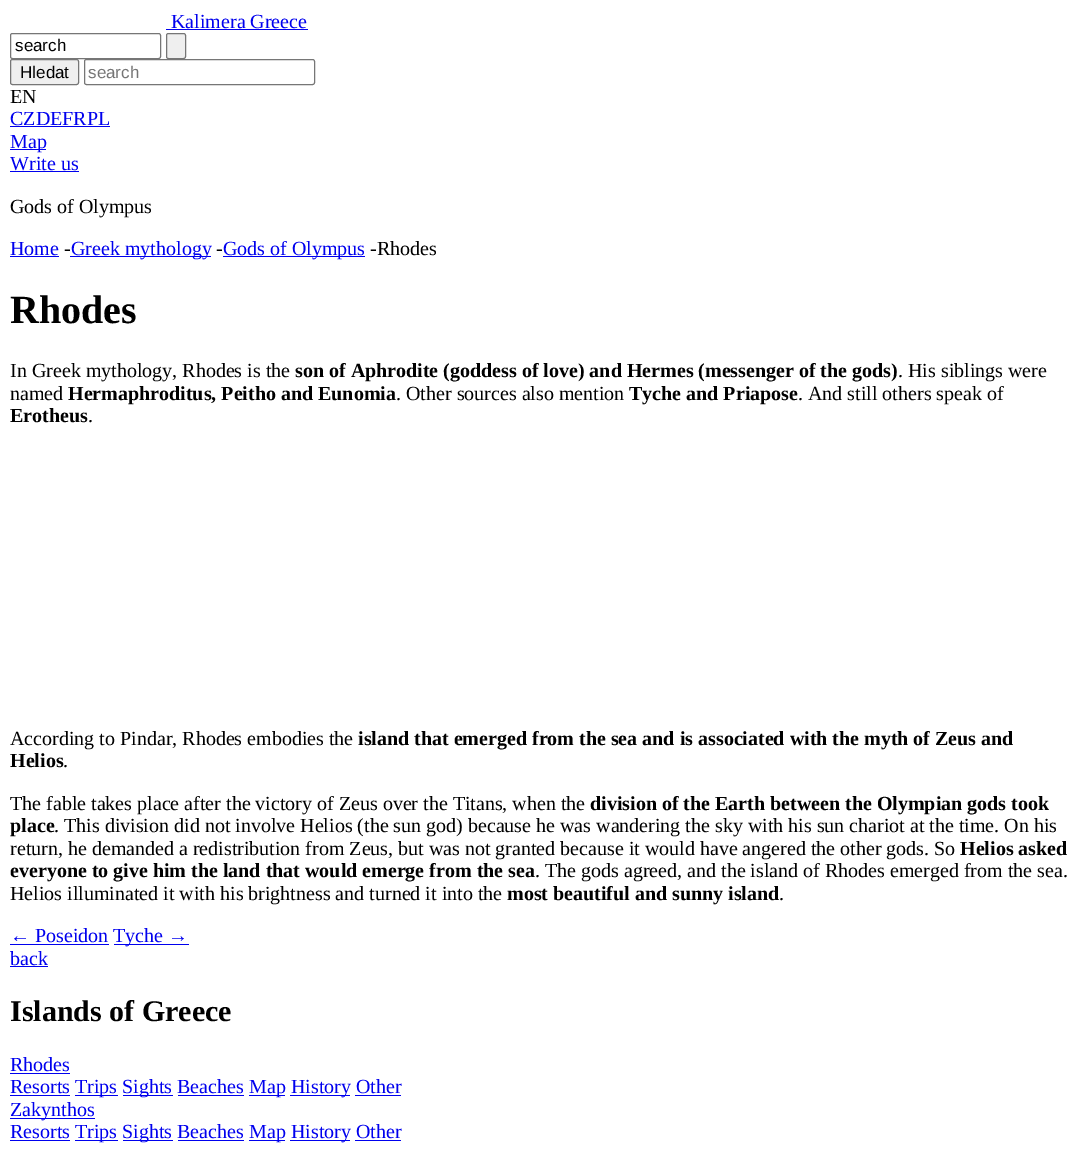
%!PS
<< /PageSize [1078 1153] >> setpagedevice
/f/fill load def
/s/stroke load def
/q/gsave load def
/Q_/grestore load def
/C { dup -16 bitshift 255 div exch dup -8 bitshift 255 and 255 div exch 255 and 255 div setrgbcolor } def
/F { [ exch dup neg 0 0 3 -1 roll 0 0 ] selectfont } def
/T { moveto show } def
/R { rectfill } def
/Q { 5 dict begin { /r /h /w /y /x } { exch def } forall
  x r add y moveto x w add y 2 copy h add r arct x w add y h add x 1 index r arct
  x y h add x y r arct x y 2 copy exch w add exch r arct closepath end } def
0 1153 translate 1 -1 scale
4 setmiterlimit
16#FFFFFF C
0 0 1078 1153 R
/LiberationSerif-Regular 20 F
16#0000EE C
(Kalimera Greece) 171 28 T
166 29 142 1 R
16#767676 C
10.5 33.5 150 25 2 Q s
/LiberationSans-Regular 17 F
16#000000 C
(search) 15 51 T
16#EFEFEF C
166.5 33.5 19 25 2 Q q f Q_
16#767676 C
s
16#EFEFEF C
10.5 59.5 68 25 2 Q q f Q_
16#767676 C
s
16#000000 C
(Hledat) 20 78 T
16#767676 C
84.5 59.5 230 25 2 Q s
16#757575 C
(search) 88 78 T
/LiberationSerif-Regular 20 F
16#000000 C
(EN) 10 103 T
16#0000EE C
(CZDEFRPL) 10 125 T
10 126 100 1 R
10 149 36 1 R
(Map) 10 148 T
(Write us) 10 170 T
10 171 69 1 R
16#000000 C
(Gods of Olympus) 10 213 T
16#0000EE C
(Home) 10 255 T
10 256 49 1 R
16#000000 C
(-) 64 255 T
16#0000EE C
70 256 141 1 R
(Greek mythology) 71 255 T
16#000000 C
(-) 216 255 T
16#0000EE C
223 256 142 1 R
(Gods of Olympus) 223 255 T
16#000000 C
(-Rhodes) 370 255 T
/LiberationSerif-Bold 40 F
(Rhodes) 10 323 T
/LiberationSerif-Regular 20 F
(In Greek mythology, Rhodes is the) 10 377 T
/LiberationSerif-Bold 20 F
(son of Aphrodite \(goddess of love\) and Hermes \(messenger of the gods\)) 295 377 T
/LiberationSerif-Regular 20 F
(. His siblings were) 898 377 T
(named) 10 400 T
/LiberationSerif-Bold 20 F
(Hermaphroditus, Peitho and Eunomia) 68 400 T
/LiberationSerif-Regular 20 F
(. Other sources also mention) 396 400 T
/LiberationSerif-Bold 20 F
(Tyche and Priapose) 629 400 T
/LiberationSerif-Regular 20 F
(. And still others speak of) 798 400 T
/LiberationSerif-Bold 20 F
(Erotheus) 10 422 T
/LiberationSerif-Regular 20 F
(.) 88 422 T
(According to Pindar, Rhodes embodies the) 10 745 T
/LiberationSerif-Bold 20 F
(island that emerged from the sea and is associated with the myth of Zeus and) 358 745 T
(Helios) 10 767 T
/LiberationSerif-Regular 20 F
(.) 63 767 T
(The fable takes place after the victory of Zeus over the Titans, when the) 10 810 T
/LiberationSerif-Bold 20 F
(division of the Earth between the Olympian gods took) 590 810 T
(place) 10 832 T
/LiberationSerif-Regular 20 F
(. This division did not involve Helios \(the sun god\) because he was wandering the sky with his sun chariot at the time. On his) 54 832 T
(return, he demanded a redistribution from Zeus, but was not granted because it would have angered the other gods. So) 10 855 T
/LiberationSerif-Bold 20 F
(Helios asked) 960 855 T
(everyone to give him the land that would emerge from the sea) 10 877 T
/LiberationSerif-Regular 20 F
(. The gods agreed, and the island of Rhodes emerged from the sea.) 535 877 T
(Helios illuminated it with his brightness and turned it into the) 10 900 T
/LiberationSerif-Bold 20 F
(most beautiful and sunny island) 507 900 T
/LiberationSerif-Regular 20 F
(.) 779 900 T
16#0000EE C
(← Poseidon) 10 942 T
10 944 99 1 R
114 944 75 1 R
(Tyche →) 113 942 T
(back) 10 965 T
10 966 38 1 R
/LiberationSerif-Bold 30 F
16#000000 C
(Islands of Greece) 10 1021 T
/LiberationSerif-Regular 20 F
16#0000EE C
(Rhodes) 10 1071 T
10 1073 60 1 R
(Resorts) 10 1093 T
10 1095 60 1 R
75 1095 43 1 R
(Trips) 75 1093 T
123 1095 50 1 R
(Sights Beaches) 122 1093 T
249 1095 36 1 R
(Map) 249 1093 T
290 1095 60 1 R
(History Other) 291 1093 T
178 1095 66 1 R
355 1095 46 1 R
10 1118 85 1 R
(Zakynthos) 10 1116 T
(Resorts) 10 1138 T
10 1140 60 1 R
75 1140 43 1 R
(Trips) 75 1138 T
123 1140 50 1 R
(Sights Beaches) 122 1138 T
249 1140 36 1 R
(Map) 249 1138 T
290 1140 60 1 R
(History Other) 291 1138 T
178 1140 66 1 R
355 1140 46 1 R
showpage
